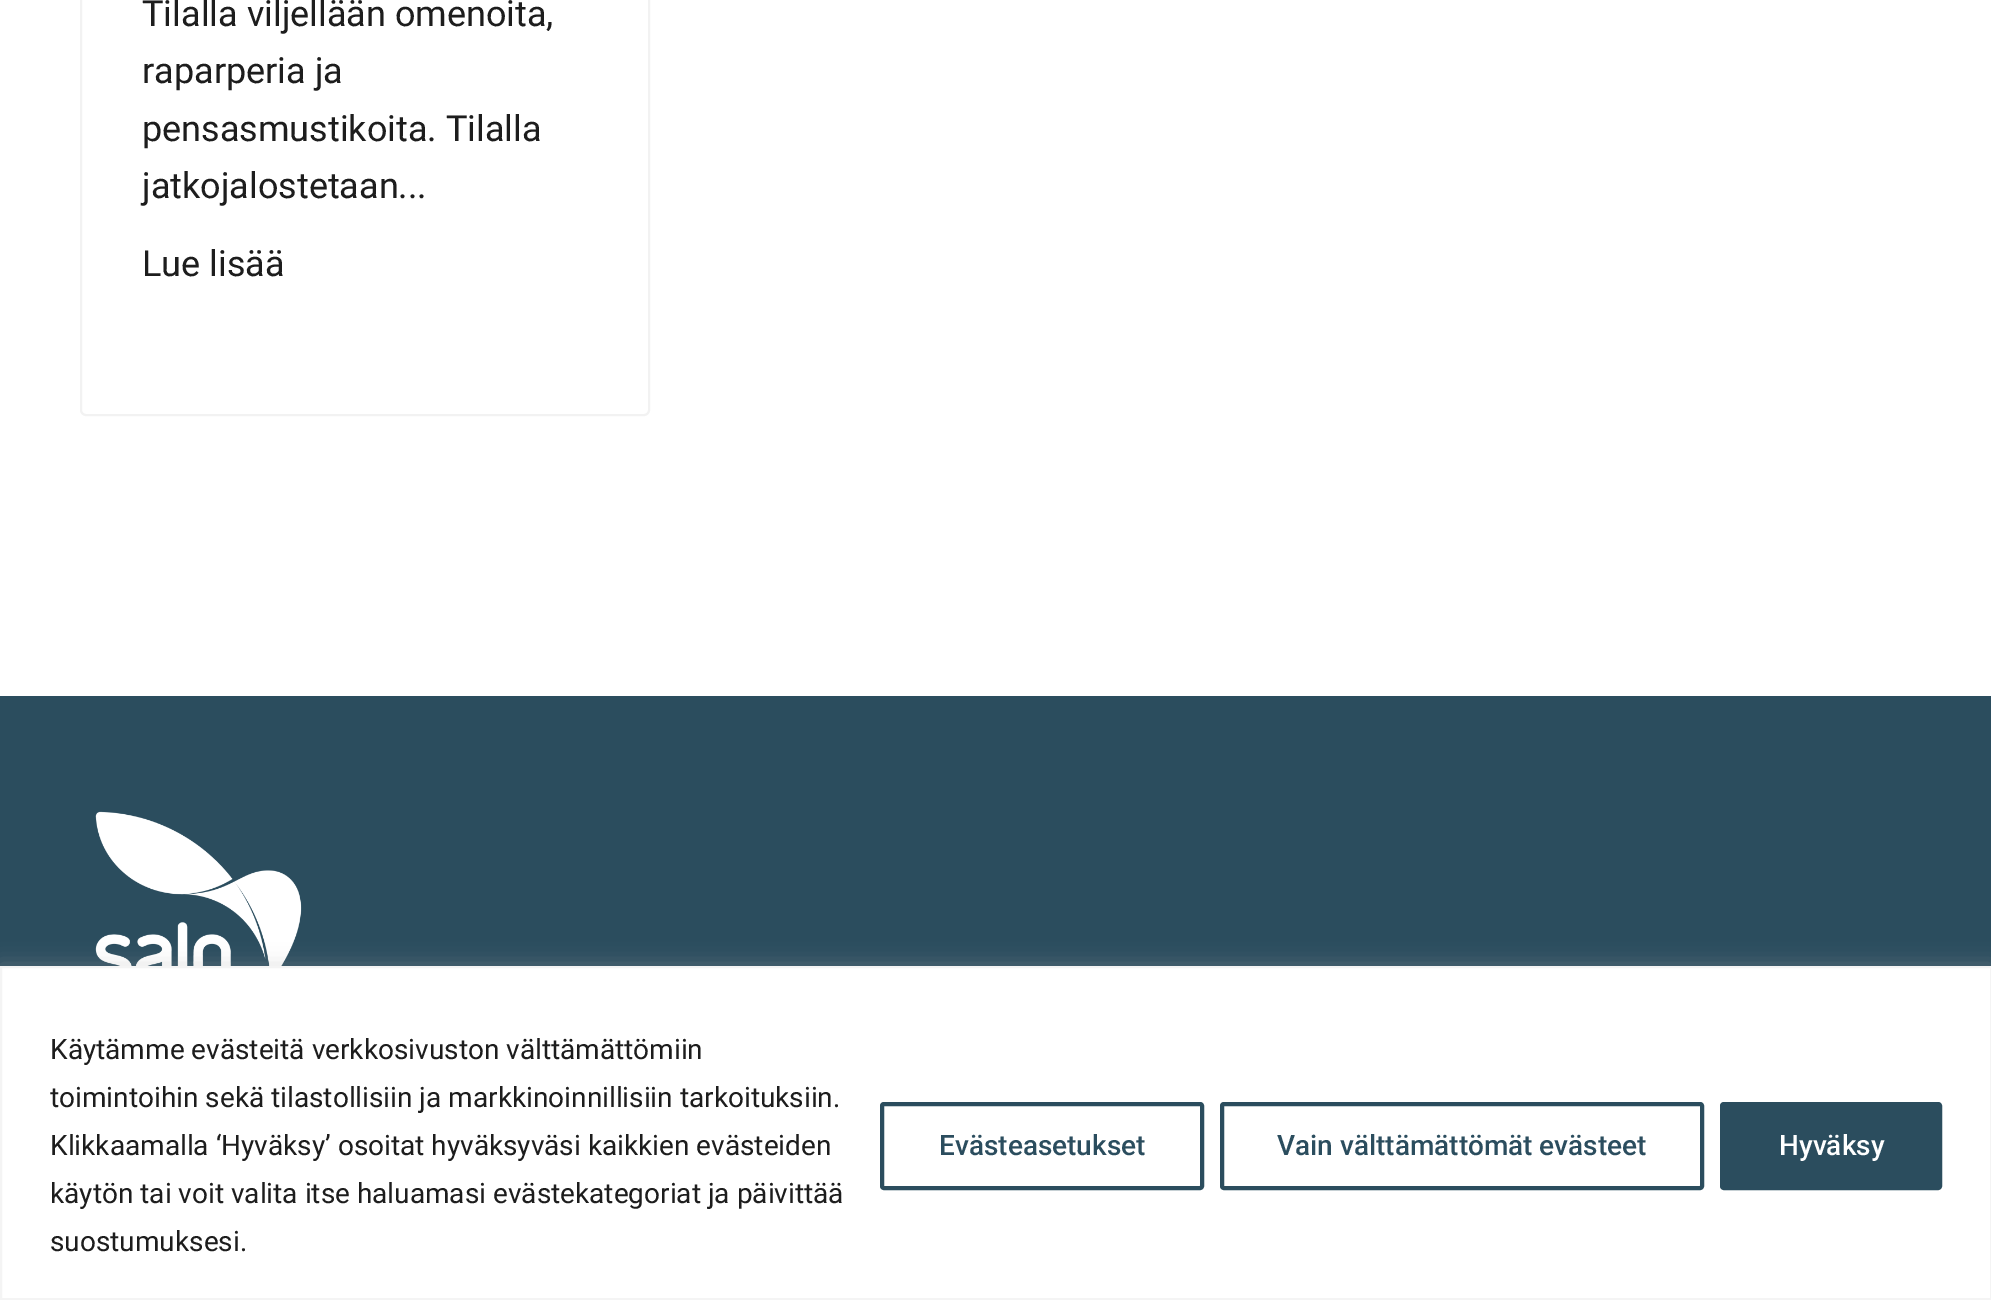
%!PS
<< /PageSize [1991 1300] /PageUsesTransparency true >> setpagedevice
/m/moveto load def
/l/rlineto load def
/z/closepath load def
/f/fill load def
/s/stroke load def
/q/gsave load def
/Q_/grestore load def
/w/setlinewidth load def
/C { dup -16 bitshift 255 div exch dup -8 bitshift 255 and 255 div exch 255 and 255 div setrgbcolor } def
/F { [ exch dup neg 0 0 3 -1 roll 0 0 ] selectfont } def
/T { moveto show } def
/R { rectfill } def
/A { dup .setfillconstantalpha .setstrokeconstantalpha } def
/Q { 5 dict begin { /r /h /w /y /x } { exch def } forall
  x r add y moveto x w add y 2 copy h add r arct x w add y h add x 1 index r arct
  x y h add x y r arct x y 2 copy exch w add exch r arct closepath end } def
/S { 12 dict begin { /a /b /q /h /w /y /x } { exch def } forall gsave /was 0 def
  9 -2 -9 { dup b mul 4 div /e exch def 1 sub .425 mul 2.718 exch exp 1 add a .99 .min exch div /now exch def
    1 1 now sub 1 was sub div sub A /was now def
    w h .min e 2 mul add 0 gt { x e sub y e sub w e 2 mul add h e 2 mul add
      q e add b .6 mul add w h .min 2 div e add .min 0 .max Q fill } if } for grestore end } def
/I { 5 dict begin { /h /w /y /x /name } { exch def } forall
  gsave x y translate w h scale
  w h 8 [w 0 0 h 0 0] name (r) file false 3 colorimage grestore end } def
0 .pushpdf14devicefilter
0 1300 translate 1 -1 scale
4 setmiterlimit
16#FFFFFF C
0 0 1991 1300 R
16#F2F2F2 C
2 w
81 -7 568 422 5 Q s
/Roboto-Regular 36 F
16#1D1D1D C
(Tilalla viljellään omenoita,) 142 26 T
(raparperia ja) 142 83 T
(pensasmustikoita. Tilalla) 142 141 T
(jatkojalostetaan...) 142 198 T
(Lue lisää) 142 276 T
16#2B4D5E C
0 696 1991 270 R
(1.rgb) 95 811 207 155 I
16#ACABAB C
0 964 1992 334 0 10 .3 S
16#FFFFFF C
1 967 m 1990 0 l 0 332 l -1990 0 l z q f Q_
16#F4F4F4 C
s
/Roboto-Regular 28 F
16#1D1D1D C
(Käytämme evästeitä verkkosivuston välttämättömiin) 50 1059 T
(toimintoihin sekä tilastollisiin ja markkinoinnillisiin tarkoituksiin.) 50 1107 T
(Klikkaamalla ‘Hyväksy’ osoitat hyväksyväsi kaikkien evästeiden) 50 1155 T
(käytön tai voit valita itse haluamasi evästekategoriat ja päivittää) 50 1203 T
(suostumuksesi.) 50 1251 T
16#2B4D5E C
4 w
882 1104 320 84 2 Q s
/Roboto-Medium 28 F
(Evästeasetukset) 939 1155 T
1222 1104 480 84 2 Q s
(Vain välttämättömät evästeet) 1277 1155 T
1722 1104 218 84 2 Q q f Q_
s
16#FFFFFF C
(Hyväksy) 1779 1155 T
.poppdf14devicefilter showpage
